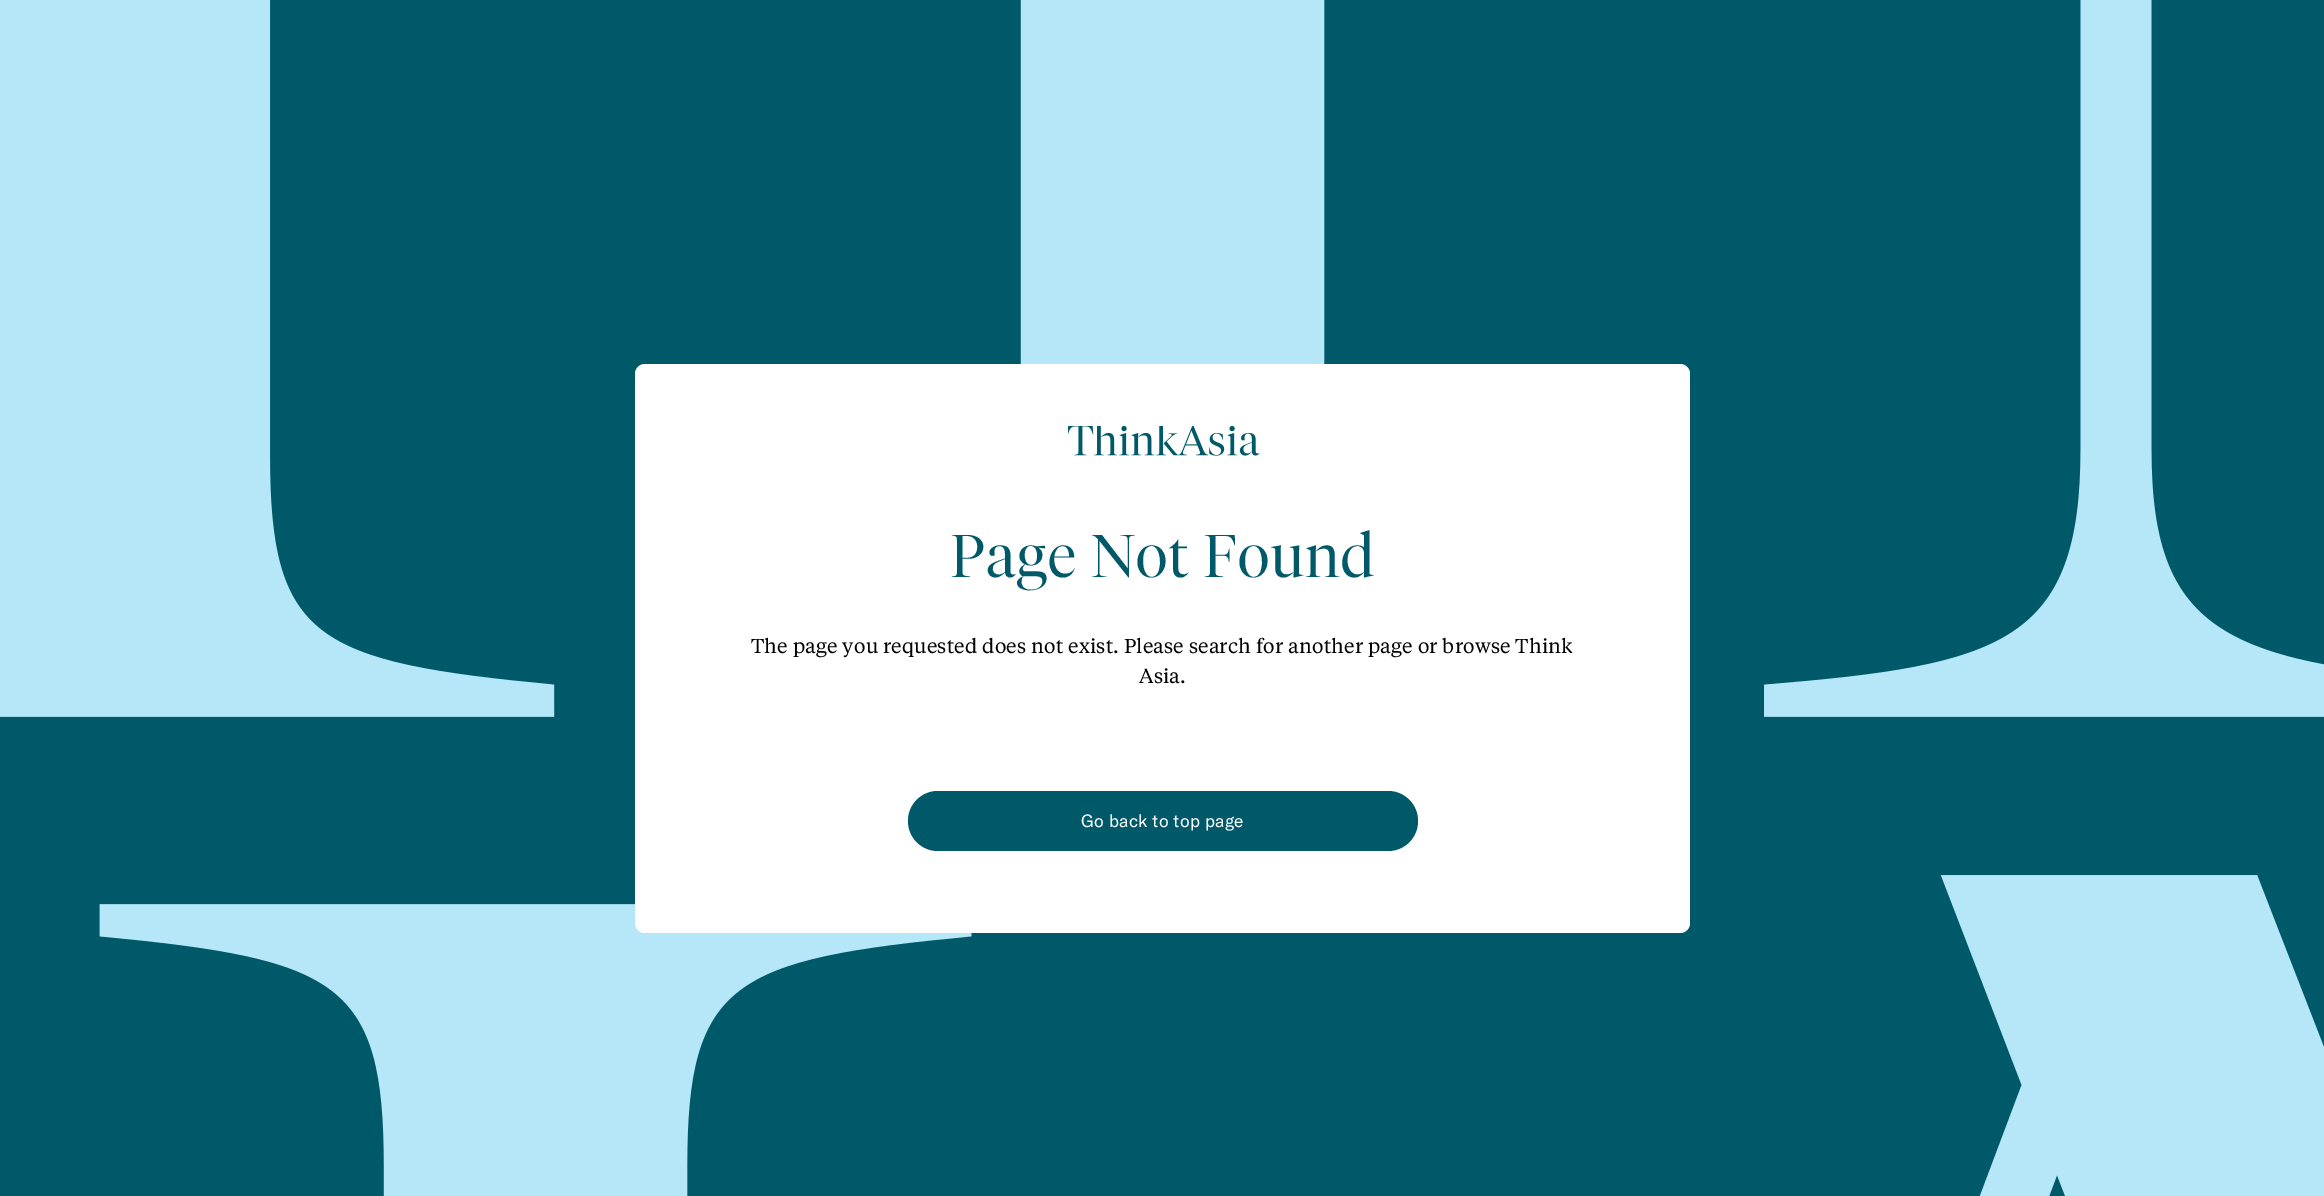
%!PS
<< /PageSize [2324 1196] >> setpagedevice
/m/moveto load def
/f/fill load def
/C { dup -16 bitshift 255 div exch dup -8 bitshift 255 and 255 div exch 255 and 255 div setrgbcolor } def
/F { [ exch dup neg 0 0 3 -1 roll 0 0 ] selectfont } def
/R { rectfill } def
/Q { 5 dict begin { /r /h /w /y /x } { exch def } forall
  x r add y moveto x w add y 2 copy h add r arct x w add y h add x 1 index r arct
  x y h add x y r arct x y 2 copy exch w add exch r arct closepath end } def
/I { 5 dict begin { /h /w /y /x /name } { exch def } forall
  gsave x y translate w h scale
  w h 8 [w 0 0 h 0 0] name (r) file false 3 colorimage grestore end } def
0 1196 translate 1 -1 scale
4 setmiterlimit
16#FFFFFF C
0 0 2324 1196 R
(1.rgb) 0 0 2324 1196 I
635 364 1055 569 10 Q f
(2.rgb) 1068 426 192 30 I
/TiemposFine-Light 60 F
16#005969 C
950 577 m 1.25 0 (Page Not Found) ashow
/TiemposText-Regular 20 F
16#000000 C
751 653 m .2 0 (The page you requested does not exist. Please search for another page or browse Think) ashow
1139 683 m .2 0 (Asia.) ashow
16#005969 C
908 791 510 60 30 Q f
/GTAmerica-Regular 17.5 F
16#FFFFFF C
1081 827 m .2 0 (Go back to top page) ashow
showpage
